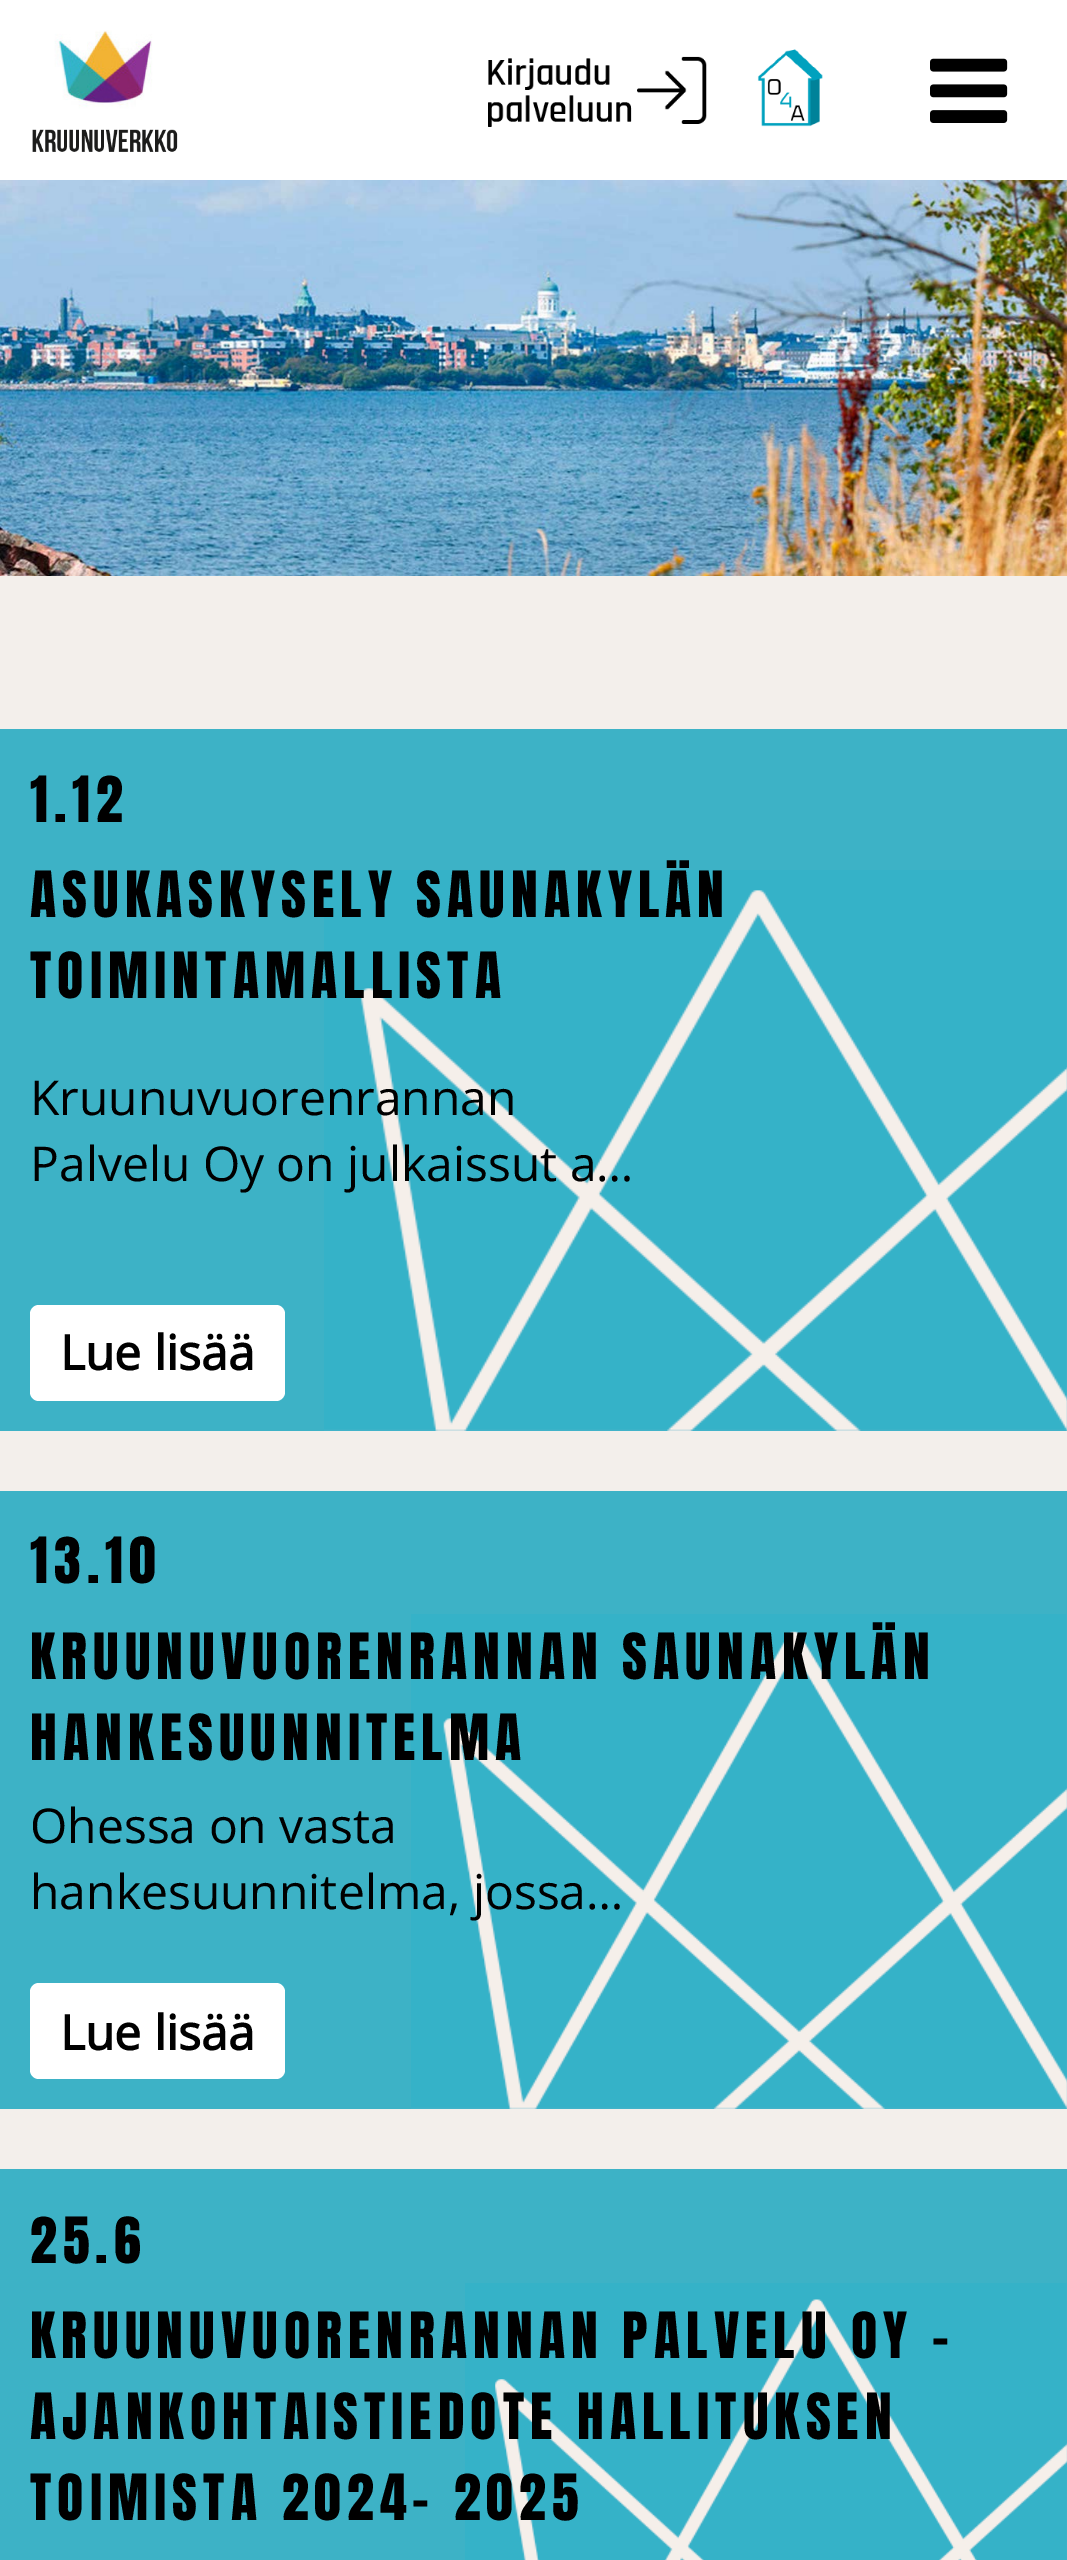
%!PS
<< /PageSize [1067 2560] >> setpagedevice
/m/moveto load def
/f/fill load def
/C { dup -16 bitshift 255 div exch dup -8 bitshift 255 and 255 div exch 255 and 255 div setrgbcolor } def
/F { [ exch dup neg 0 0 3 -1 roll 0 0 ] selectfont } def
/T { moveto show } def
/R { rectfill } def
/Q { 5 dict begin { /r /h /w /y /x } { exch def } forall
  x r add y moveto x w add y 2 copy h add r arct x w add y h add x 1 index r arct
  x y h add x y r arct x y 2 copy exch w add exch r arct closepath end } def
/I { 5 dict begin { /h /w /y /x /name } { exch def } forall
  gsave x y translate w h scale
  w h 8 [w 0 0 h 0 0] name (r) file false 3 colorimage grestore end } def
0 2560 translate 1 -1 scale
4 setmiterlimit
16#F3EFEB C
0 0 1067 2560 R
16#FFFFFF C
0 0 1067 180 R
(1.rgb) 32 30 146 122 I
(2.rgb) 488 49 335 78 I
(3.rgb) 930 58 78 65 I
(4.rgb) 0 180 1067 396 I
16#3DB2C6 C
0 729 1067 702 R
(5.rgb) 324 870 743 561 I
/Anton-Regular 54 F
16#000000 C
30 822 m 6 0 (1.12) ashow
30 917 m 6 0 (ASUKASKYSELY SAUNAKYLÄN) ashow
30 998 m 6 0 (TOIMINTAMALLISTA) ashow
/OpenSans-Regular 48 F
(Kruunuvuorenrannan) 30 1115 T
(Palvelu Oy on julkaissut a…) 30 1181 T
16#FFFFFF C
30 1305 255 96 9 Q f
/OpenSans-Bold 48 F
16#000000 C
(Lue lisää) 60 1370 T
16#3DB2C6 C
0 1491 1067 618 R
(6.rgb) 411 1614 656 495 I
/Anton-Regular 54 F
16#000000 C
30 1583 m 6 0 (13.10) ashow
30 1679 m 6 0 (KRUUNUVUORENRANNAN SAUNAKYLÄN) ashow
30 1760 m 6 0 (HANKESUUNNITELMA) ashow
/OpenSans-Regular 48 F
(Ohessa on vasta) 30 1843 T
(hankesuunnitelma, jossa…) 30 1909 T
16#FFFFFF C
30 1983 255 96 9 Q f
/OpenSans-Bold 48 F
16#000000 C
(Lue lisää) 60 2050 T
16#3DB2C6 C
0 2169 1067 391 R
(7.rgb) 465 2283 602 277 I
/Anton-Regular 54 F
16#000000 C
30 2263 m 6 0 (25.6) ashow
30 2358 m 6 0 (KRUUNUVUORENRANNAN PALVELU OY -) ashow
30 2439 m 6 0 (AJANKOHTAISTIEDOTE HALLITUKSEN) ashow
30 2520 m 6 0 (TOIMISTA 2024- 2025) ashow
showpage
